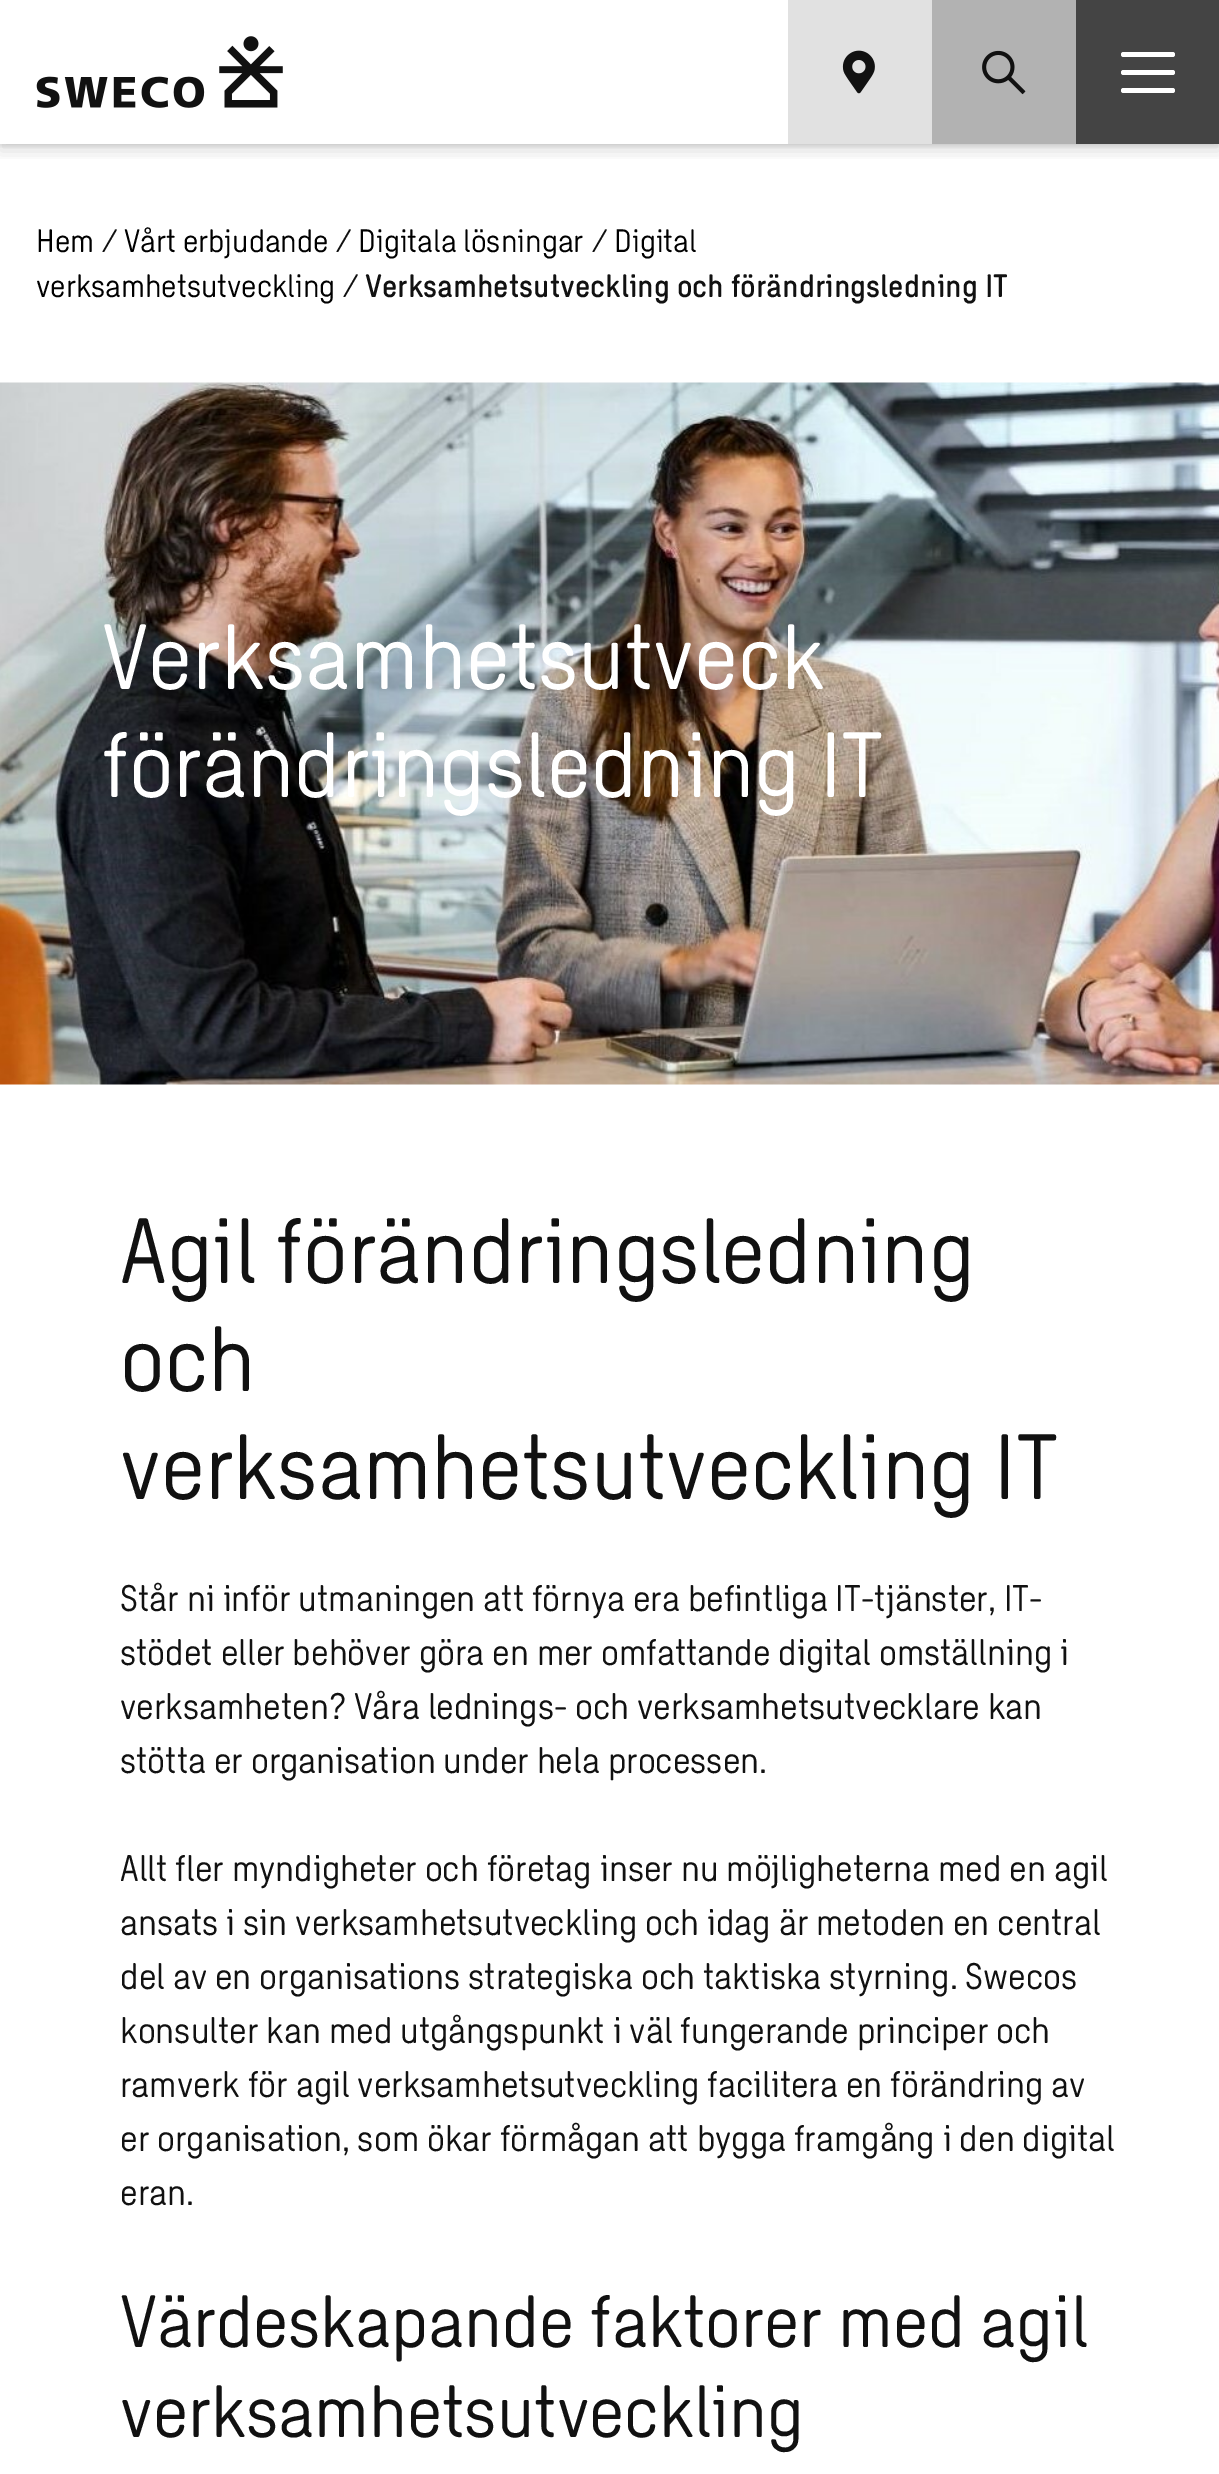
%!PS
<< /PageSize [1219 2474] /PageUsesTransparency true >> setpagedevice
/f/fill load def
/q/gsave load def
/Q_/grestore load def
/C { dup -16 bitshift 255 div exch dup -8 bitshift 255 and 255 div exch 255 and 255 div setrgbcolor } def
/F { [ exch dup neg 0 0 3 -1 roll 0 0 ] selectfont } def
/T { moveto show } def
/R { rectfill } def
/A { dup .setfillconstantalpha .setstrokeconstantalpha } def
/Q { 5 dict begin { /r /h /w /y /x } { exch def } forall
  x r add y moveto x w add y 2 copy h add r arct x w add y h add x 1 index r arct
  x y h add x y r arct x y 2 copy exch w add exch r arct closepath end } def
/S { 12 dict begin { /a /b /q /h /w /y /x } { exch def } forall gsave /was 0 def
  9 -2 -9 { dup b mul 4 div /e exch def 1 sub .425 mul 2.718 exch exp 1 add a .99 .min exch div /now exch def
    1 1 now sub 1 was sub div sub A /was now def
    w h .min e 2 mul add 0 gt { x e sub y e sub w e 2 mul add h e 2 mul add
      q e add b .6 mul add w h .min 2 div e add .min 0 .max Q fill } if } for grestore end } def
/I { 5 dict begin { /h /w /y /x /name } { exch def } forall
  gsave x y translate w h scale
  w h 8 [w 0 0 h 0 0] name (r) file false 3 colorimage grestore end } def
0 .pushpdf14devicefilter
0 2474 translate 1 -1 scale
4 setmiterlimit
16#FFFFFF C
0 0 1219 2474 R
q
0 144 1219 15 rectclip
16#000000 C
0 7 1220 144 0 8 .13 S
Q_
q
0 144 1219 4 rectclip
16#000000 C
0 2 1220 144 0 2 .1 S
Q_
(1.rgb) 36 36 247 72 I
16#E1E1E1 C
788 0 144 144 R
(2.rgb) 842 50 33 44 I
16#B2B2B2 C
932 0 144 144 R
(3.rgb) 982 50 44 45 I
16#444444 C
1076 0 143 144 R
16#FFFFFF C
1121 70 54 5 2.5 Q f
1121 52 54 5 2.5 Q f
1121 88 54 5 2.5 Q f
/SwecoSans-Regular 31.5 F
16#000000 C
(Hem) 36 252 T
/SwecoSans-Italic 31.5 F
16#111111 C
(/) 103 252 T
/SwecoSans-Regular 31.5 F
16#000000 C
(Vårt erbjudande) 124 252 T
/SwecoSans-Italic 31.5 F
16#111111 C
(/) 337 252 T
/SwecoSans-Regular 31.5 F
16#000000 C
(Digitala lösningar) 358 252 T
/SwecoSans-Italic 31.5 F
16#111111 C
(/) 593 252 T
/SwecoSans-Regular 31.5 F
16#000000 C
(Digital) 614 252 T
(verksamhetsutveckling) 36 297 T
/SwecoSans-Italic 31.5 F
16#111111 C
(/) 344 297 T
/SwecoSans-Medium 31.5 F
(Verksamhetsutveckling och förändringsledning IT) 365 297 T
(4.rgb) 0 382 1219 703 I
/SwecoSans-Regular 90 F
16#FFFFFF C
(Verksamhetsutveck) 102 689 T
(förändringsledning IT) 102 797 T
16#111111 C
(Agil förändringsledning) 120 1283 T
(och) 120 1391 T
(verksamhetsutveckling IT) 120 1499 T
/SwecoSans-Regular 36 F
(Står ni inför utmaningen att förnya era befintliga IT-tjänster, IT-) 120 1611 T
(stödet eller behöver göra en mer omfattande digital omställning i) 120 1665 T
(verksamheten? Våra lednings- och verksamhetsutvecklare kan) 120 1719 T
(stötta er organisation under hela processen.) 120 1773 T
(Allt fler myndigheter och företag inser nu möjligheterna med en agil) 120 1881 T
(ansats i sin verksamhetsutveckling och idag är metoden en central) 120 1935 T
(del av en organisations strategiska och taktiska styrning. Swecos) 120 1989 T
(konsulter kan med utgångspunkt i väl fungerande principer och) 120 2043 T
(ramverk för agil verksamhetsutveckling facilitera en förändring av) 120 2097 T
(er organisation, som ökar förmågan att bygga framgång i den digital) 120 2151 T
(eran.) 120 2205 T
/SwecoSans-Regular 72 F
(Värdeskapande faktorer med agil) 120 2347 T
(verksamhetsutveckling) 120 2437 T
.poppdf14devicefilter showpage
